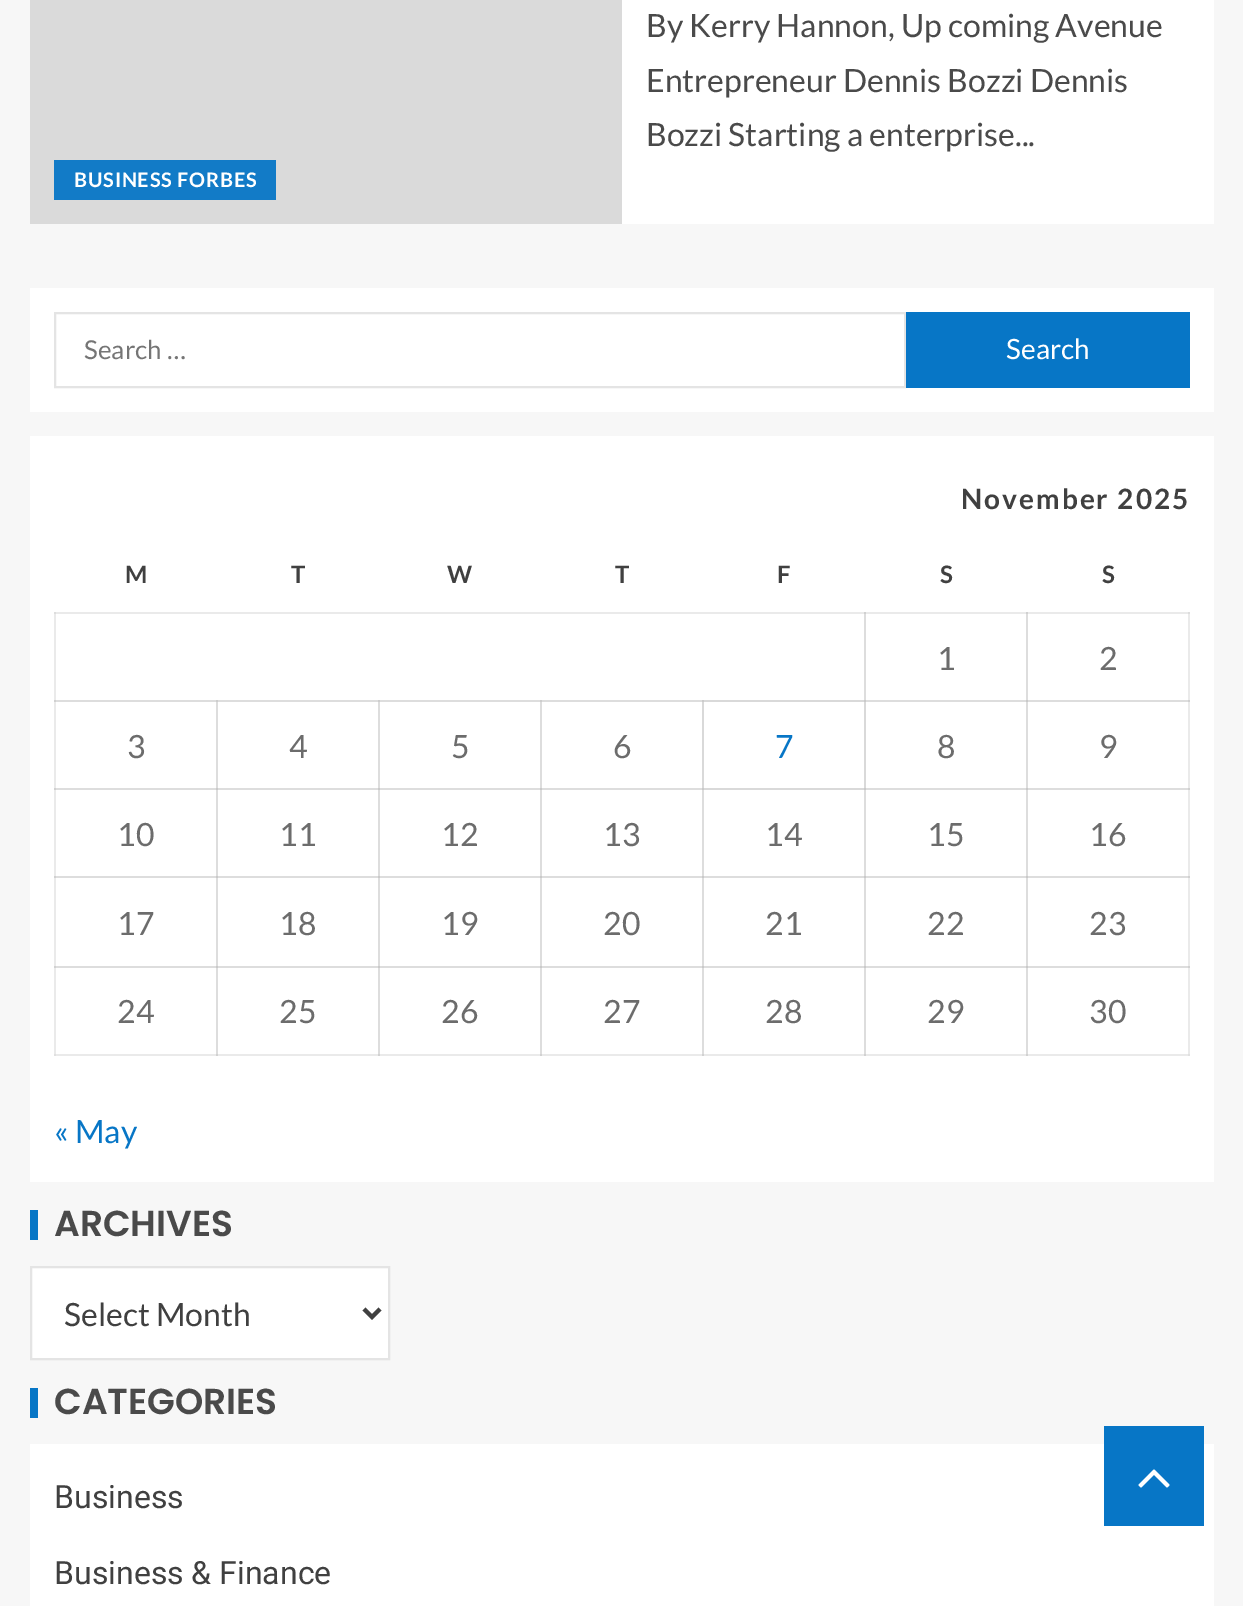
%!PS
<< /PageSize [1243 1606] >> setpagedevice
/m/moveto load def
/l/rlineto load def
/z/closepath load def
/f/fill load def
/s/stroke load def
/q/gsave load def
/Q_/grestore load def
/w/setlinewidth load def
/C { dup -16 bitshift 255 div exch dup -8 bitshift 255 and 255 div exch 255 and 255 div setrgbcolor } def
/F { [ exch dup neg 0 0 3 -1 roll 0 0 ] selectfont } def
/T { moveto show } def
/R { rectfill } def
/I { 5 dict begin { /h /w /y /x /name } { exch def } forall
  gsave x y translate w h scale
  w h 8 [w 0 0 h 0 0] name (r) file false 3 colorimage grestore end } def
0 1606 translate 1 -1 scale
4 setmiterlimit
16#F7F7F7 C
0 0 1243 1606 R
16#FFFFFF C
622 0 592 224 R
/Lato-Regular 32 F
16#4A4A4A C
(By Kerry Hannon, Up coming Avenue) 646 37 T
(Entrepreneur Dennis Bozzi Dennis) 646 92 T
(Bozzi Starting a enterprise...) 646 146 T
16#DADADA C
30 0 592 224 R
16#127BC7 C
54 160 222 40 R
/Lato-Bold 20 F
16#FFFFFF C
74 187 m .75 0 (BUSINESS FORBES) ashow
30 288 1184 124 R
16#E4E4E4 C
2 w
55 313 850 74 rectstroke
/Lato-Regular 26 F
16#757575 C
(Search …) 84 359 T
16#0776C6 C
906 312 284 76 R
/Lato-Regular 28 F
16#FFFFFF C
(Search) 1006 359 T
30 436 1184 746 R
16#EAEAEA C
54 612 2 444 R
54 612 812 2 R
16#DDDDDD C
54 612 2 2 R
864 612 2 90 R
16#EAEAEA C
864 612 164 2 R
16#D0D0D0 C
864 612 2 2 R
16#DDDDDD C
1026 612 2 90 R
16#EAEAEA C
1188 612 2 356 R
16#DDDDDD C
54 700 164 2 R
16#D0D0D0 C
54 700 2 2 R
16#DDDDDD C
216 700 2 90 R
216 700 164 2 R
16#CDCDCD C
216 700 2 2 R
16#DDDDDD C
378 700 2 90 R
378 700 164 2 R
16#CDCDCD C
378 700 2 2 R
16#DDDDDD C
540 700 2 90 R
540 700 164 2 R
16#CDCDCD C
540 700 2 2 R
16#D9D9D9 C
702 700 2 90 R
702 700 164 2 R
16#CBCBCB C
702 700 2 2 R
16#D9D9D9 C
864 700 2 90 R
16#DDDDDD C
864 700 164 2 R
16#C9C9C9 C
864 700 2 2 R
16#DDDDDD C
1026 700 2 90 R
54 788 164 2 R
16#D0D0D0 C
54 788 2 2 R
16#DDDDDD C
216 788 2 90 R
216 788 164 2 R
16#C9C9C9 C
216 788 2 2 R
16#DDDDDD C
378 788 2 90 R
378 788 164 2 R
16#C9C9C9 C
378 788 2 2 R
16#DDDDDD C
540 788 2 90 R
540 788 164 2 R
16#C9C9C9 C
540 788 2 2 R
16#DDDDDD C
702 788 2 90 R
16#D9D9D9 C
702 788 164 2 R
16#C9C9C9 C
702 788 2 2 R
16#DDDDDD C
864 788 2 90 R
864 788 164 2 R
16#C9C9C9 C
864 788 2 2 R
16#DDDDDD C
1026 788 2 90 R
54 876 164 2 R
16#D0D0D0 C
54 876 2 2 R
16#DDDDDD C
216 876 2 92 R
216 876 164 2 R
16#C9C9C9 C
216 876 2 2 R
16#DDDDDD C
378 876 2 92 R
378 876 164 2 R
16#C9C9C9 C
378 876 2 2 R
16#DDDDDD C
540 876 2 92 R
540 876 164 2 R
16#C9C9C9 C
540 876 2 2 R
16#DDDDDD C
702 876 2 92 R
702 876 164 2 R
16#C9C9C9 C
702 876 2 2 R
16#DDDDDD C
864 876 2 92 R
864 876 164 2 R
16#C9C9C9 C
864 876 2 2 R
16#DDDDDD C
1026 876 2 92 R
16#EAEAEA C
54 1054 164 2 R
16#E0E0E0 C
54 1054 2 2 R
16#DDDDDD C
54 966 164 2 R
16#D1D1D1 C
54 966 2 2 R
16#DDDDDD C
216 966 2 90 R
16#EAEAEA C
216 1054 164 2 R
16#D1D1D1 C
216 1054 2 2 R
16#DDDDDD C
216 966 164 2 R
16#C9C9C9 C
216 966 2 2 R
16#DDDDDD C
378 966 2 90 R
16#EAEAEA C
378 1054 164 2 R
16#D1D1D1 C
378 1054 2 2 R
16#DDDDDD C
378 966 164 2 R
16#C9C9C9 C
378 966 2 2 R
16#DDDDDD C
540 966 2 90 R
16#EAEAEA C
540 1054 164 2 R
16#D1D1D1 C
540 1054 2 2 R
16#DDDDDD C
540 966 164 2 R
16#C9C9C9 C
540 966 2 2 R
16#DDDDDD C
702 966 2 90 R
16#EAEAEA C
702 1054 164 2 R
16#D1D1D1 C
702 1054 2 2 R
16#DDDDDD C
702 966 164 2 R
16#C9C9C9 C
702 966 2 2 R
16#DDDDDD C
864 966 2 90 R
16#EAEAEA C
864 1054 164 2 R
16#D1D1D1 C
864 1054 2 2 R
16#DDDDDD C
864 966 164 2 R
16#C9C9C9 C
864 966 2 2 R
16#DDDDDD C
1026 966 2 90 R
16#EAEAEA C
1026 1054 164 2 R
16#D1D1D1 C
1026 1054 2 2 R
16#EAEAEA C
1188 966 2 90 R
16#E0E0E0 C
1188 1054 2 2 R
/Lato-Bold 28 F
16#404040 C
961 509 m 2 0 (November 2025) ashow
/Lato-Bold 24 F
(M) 125 583 T
(T) 291 583 T
(W) 447 583 T
(T) 615 583 T
(F) 777 583 T
(S) 940 583 T
(S) 1102 583 T
/Lato-Regular 32 F
16#6C6C6C C
(1) 937 670 T
16#EAEAEA C
1026 612 164 2 R
16#D0D0D0 C
1026 612 2 2 R
16#DDDDDD C
1188 612 2 2 R
16#6C6C6C C
(2) 1099 670 T
(3) 127 758 T
(4) 289 758 T
(5) 451 758 T
(6) 613 758 T
16#0776C6 C
(7) 775 758 T
16#6C6C6C C
(8) 937 758 T
16#DDDDDD C
1026 700 164 2 R
16#C9C9C9 C
1026 700 2 2 R
16#D0D0D0 C
1188 700 2 2 R
16#6C6C6C C
(9) 1099 758 T
(10) 117 846 T
(11) 279 846 T
(12) 441 846 T
(13) 603 846 T
(14) 765 846 T
(15) 927 846 T
16#DDDDDD C
1026 788 164 2 R
16#C9C9C9 C
1026 788 2 2 R
16#D0D0D0 C
1188 788 2 2 R
16#6C6C6C C
(16) 1089 846 T
(17) 117 935 T
(18) 279 935 T
(19) 441 935 T
(20) 603 935 T
(21) 765 935 T
(22) 927 935 T
16#DDDDDD C
1026 876 164 2 R
16#C9C9C9 C
1026 876 2 2 R
16#D0D0D0 C
1188 876 2 2 R
16#6C6C6C C
(23) 1089 935 T
(24) 117 1023 T
(25) 279 1023 T
(26) 441 1023 T
(27) 603 1023 T
(28) 765 1023 T
(29) 927 1023 T
16#DDDDDD C
1026 966 164 2 R
16#C9C9C9 C
1026 966 2 2 R
16#D1D1D1 C
1188 966 2 2 R
16#6C6C6C C
(30) 1089 1023 T
16#0776C6 C
(« May) 54 1143 T
30 1210 8 30 R
/Poppins-SemiBold 36 F
16#4A4A4A C
(ARCHIVES) 54 1236 T
16#FFFFFF C
31 1267 m 358 0 l 0 92 l -358 0 l z q f Q_
16#E4E4E4 C
s
16#404040 C
4 w
364 1309 m 8 8 l 8 -8 l s
/Lato-Regular 32 F
(Select Month) 64 1326 T
16#0776C6 C
30 1388 8 30 R
/Poppins-SemiBold 36 F
16#4A4A4A C
(CATEGORIES) 54 1414 T
16#FFFFFF C
30 1444 1184 162 R
/Roboto-Regular 32 F
16#404040 C
(Business) 54 1508 T
(Business & Finance) 54 1584 T
16#0776C6 C
1104 1426 100 100 R
(1.rgb) 1138 1469 32 19 I
showpage
